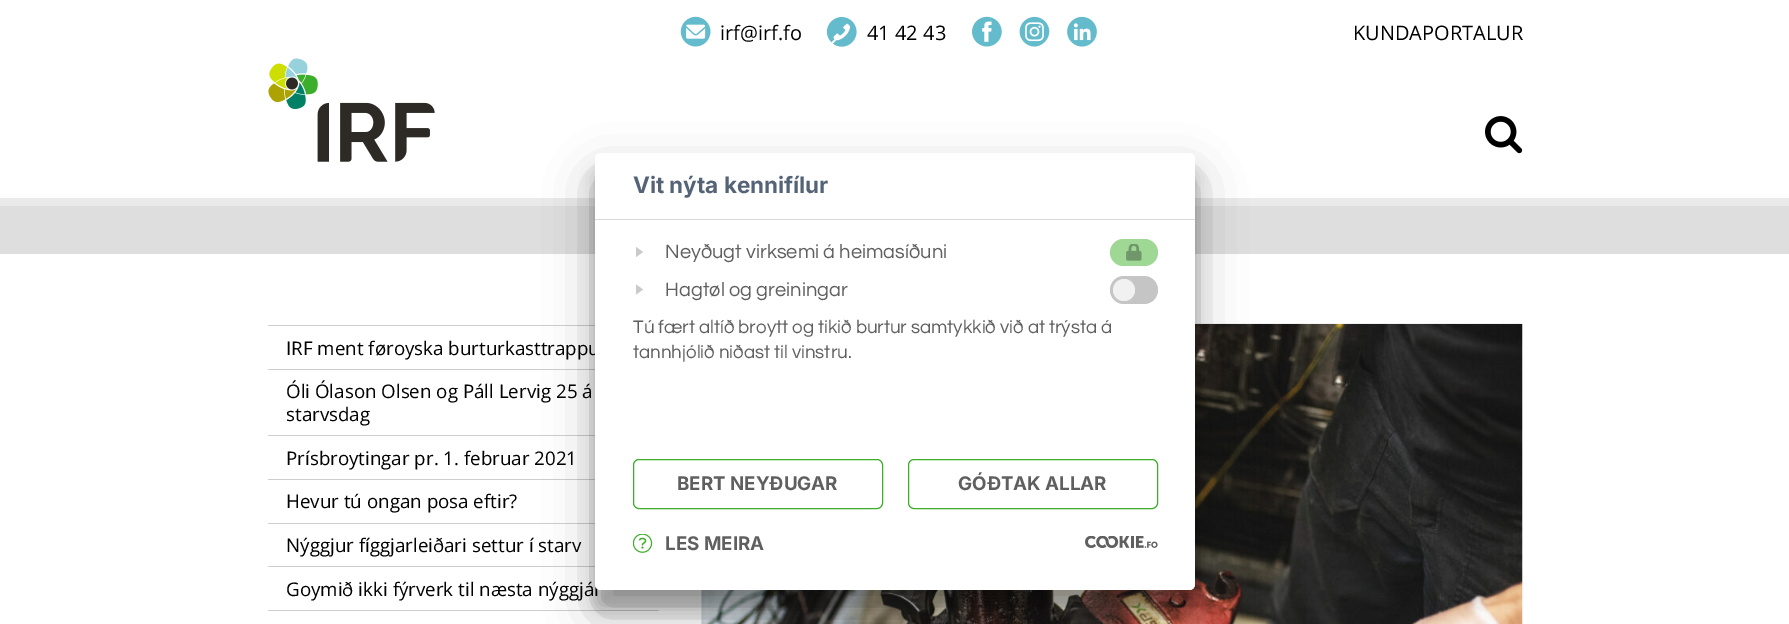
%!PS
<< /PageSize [1789 624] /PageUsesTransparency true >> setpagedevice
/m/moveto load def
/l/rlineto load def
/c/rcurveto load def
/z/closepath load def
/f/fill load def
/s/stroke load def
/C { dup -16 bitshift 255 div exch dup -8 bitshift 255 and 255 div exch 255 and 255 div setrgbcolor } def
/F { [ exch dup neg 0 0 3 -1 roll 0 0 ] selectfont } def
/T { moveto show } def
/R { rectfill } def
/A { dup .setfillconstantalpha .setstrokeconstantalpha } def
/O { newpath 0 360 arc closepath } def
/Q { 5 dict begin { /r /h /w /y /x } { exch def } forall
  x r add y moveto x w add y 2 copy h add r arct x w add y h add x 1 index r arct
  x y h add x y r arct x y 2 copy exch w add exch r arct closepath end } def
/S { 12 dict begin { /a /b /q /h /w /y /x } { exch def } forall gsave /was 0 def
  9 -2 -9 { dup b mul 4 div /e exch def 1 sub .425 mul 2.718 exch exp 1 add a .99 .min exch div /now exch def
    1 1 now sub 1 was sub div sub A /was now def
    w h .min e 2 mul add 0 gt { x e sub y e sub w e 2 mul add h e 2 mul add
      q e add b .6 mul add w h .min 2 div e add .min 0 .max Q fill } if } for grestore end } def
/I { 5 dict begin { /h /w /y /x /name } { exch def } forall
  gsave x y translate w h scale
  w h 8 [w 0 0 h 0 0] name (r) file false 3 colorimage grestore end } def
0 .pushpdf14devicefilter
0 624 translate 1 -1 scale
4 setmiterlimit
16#FFFFFF C
0 0 1789 624 R
16#EAEAEA C
0 198 1789 8 R
(1.rgb) 680 16 31 31 I
/OpenSans-Regular 20 F
16#000000 C
(irf@irf.fo) 720 40 T
(2.rgb) 826 17 31 30 I
(41 42 43) 867 40 T
(3.rgb) 972 16 30 31 I
(4.rgb) 1019 16 31 31 I
(5.rgb) 1067 16 30 31 I
(KUNDAPORTALUR) 1353 40 T
(6.rgb) 268 58 167 104 I
(7.rgb) 1485 116 38 38 I
16#DEDEDE C
0 206 1789 48 R
16#CECECE C
268 325 327 1 R
268 369 327 1 R
/OpenSans-Regular 18.75 F
16#000000 C
(IRF ment føroyska burturkasttrappu) 286 355 T
16#CECECE C
268 435 327 1 R
16#000000 C
(Óli Ólason Olsen og Páll Lervig 25 á) 286 398 T
(starvsdag) 286 421 T
16#CECECE C
268 479 327 1 R
16#000000 C
(Prísbroytingar pr. 1. februar 2021) 286 465 T
16#CECECE C
268 523 327 1 R
16#000000 C
(Hevur tú ongan posa eftir?) 286 508 T
16#CECECE C
268 566 327 1 R
16#000000 C
(Nýggjur fíggjarleiðari settur í starv) 286 552 T
16#CECECE C
268 610 391 1 R
16#000000 C
(Goymið ikki fýrverk til næsta nýggjár) 286 596 T
(8.rgb) 701 323 822 301 I
595 171 600 438 6 7.5 .22 S
595 176 600 438 6 24 .3 S
16#FFFFFF C
595 153 600 437 6 Q f
16#D9D9D9 C
595 219 600 1 R
/Inter-Bold 22.5 F
16#546375 C
(Vit nýta kennifílur) 633 193 T
16#CACACA C
636 247 m 7 5 l -7 5 l z f
/Questrial-Regular 20 F
16#5F5F5F C
(Neyðugt virksemi á heimasíðuni) 665 258 T
16#9FD795 C
1110 239 48 27 13.5 Q f
(9.rgb) 1126 244 16 17 I
16#CACACA C
636 284.5 m 7 5 l -7 5 l z f
16#5F5F5F C
(Hagtøl og greiningar) 665 296 T
16#C6C5C5 C
1110 276 48 28 14 Q f
16#F1F1F1 C
1124 290 11 O f
/Questrial-Regular 18.75 F
16#5F5F5F C
(Tú fært altíð broytt og tikið burtur samtykkið við at trýsta á) 633 333 T
(tannhjólið niðast til vinstru.) 633 358 T
16#FFFFFF C
595 449 m 600 0 l 0 135 l 0 3.5 -2.5 6 -6 6 c -588 0 l -3.5 0 -6 -2.5 -6 -6 c z f
16#40AE2B C
633.5 459.5 249 49 5.5 Q s
/Inter-Bold 18.75 F
16#5F5F5F C
(BERT NEYÐUGAR) 677 490 T
16#40AE2B C
908.5 459.5 249 49 5.5 Q s
16#5F5F5F C
(GÓÐTAK ALLAR) 958 490 T
(10.rgb) 633 534 20 19 I
(LES MEIRA) 665 550 T
(11.rgb) 1085 536 73 12 I
.poppdf14devicefilter showpage
